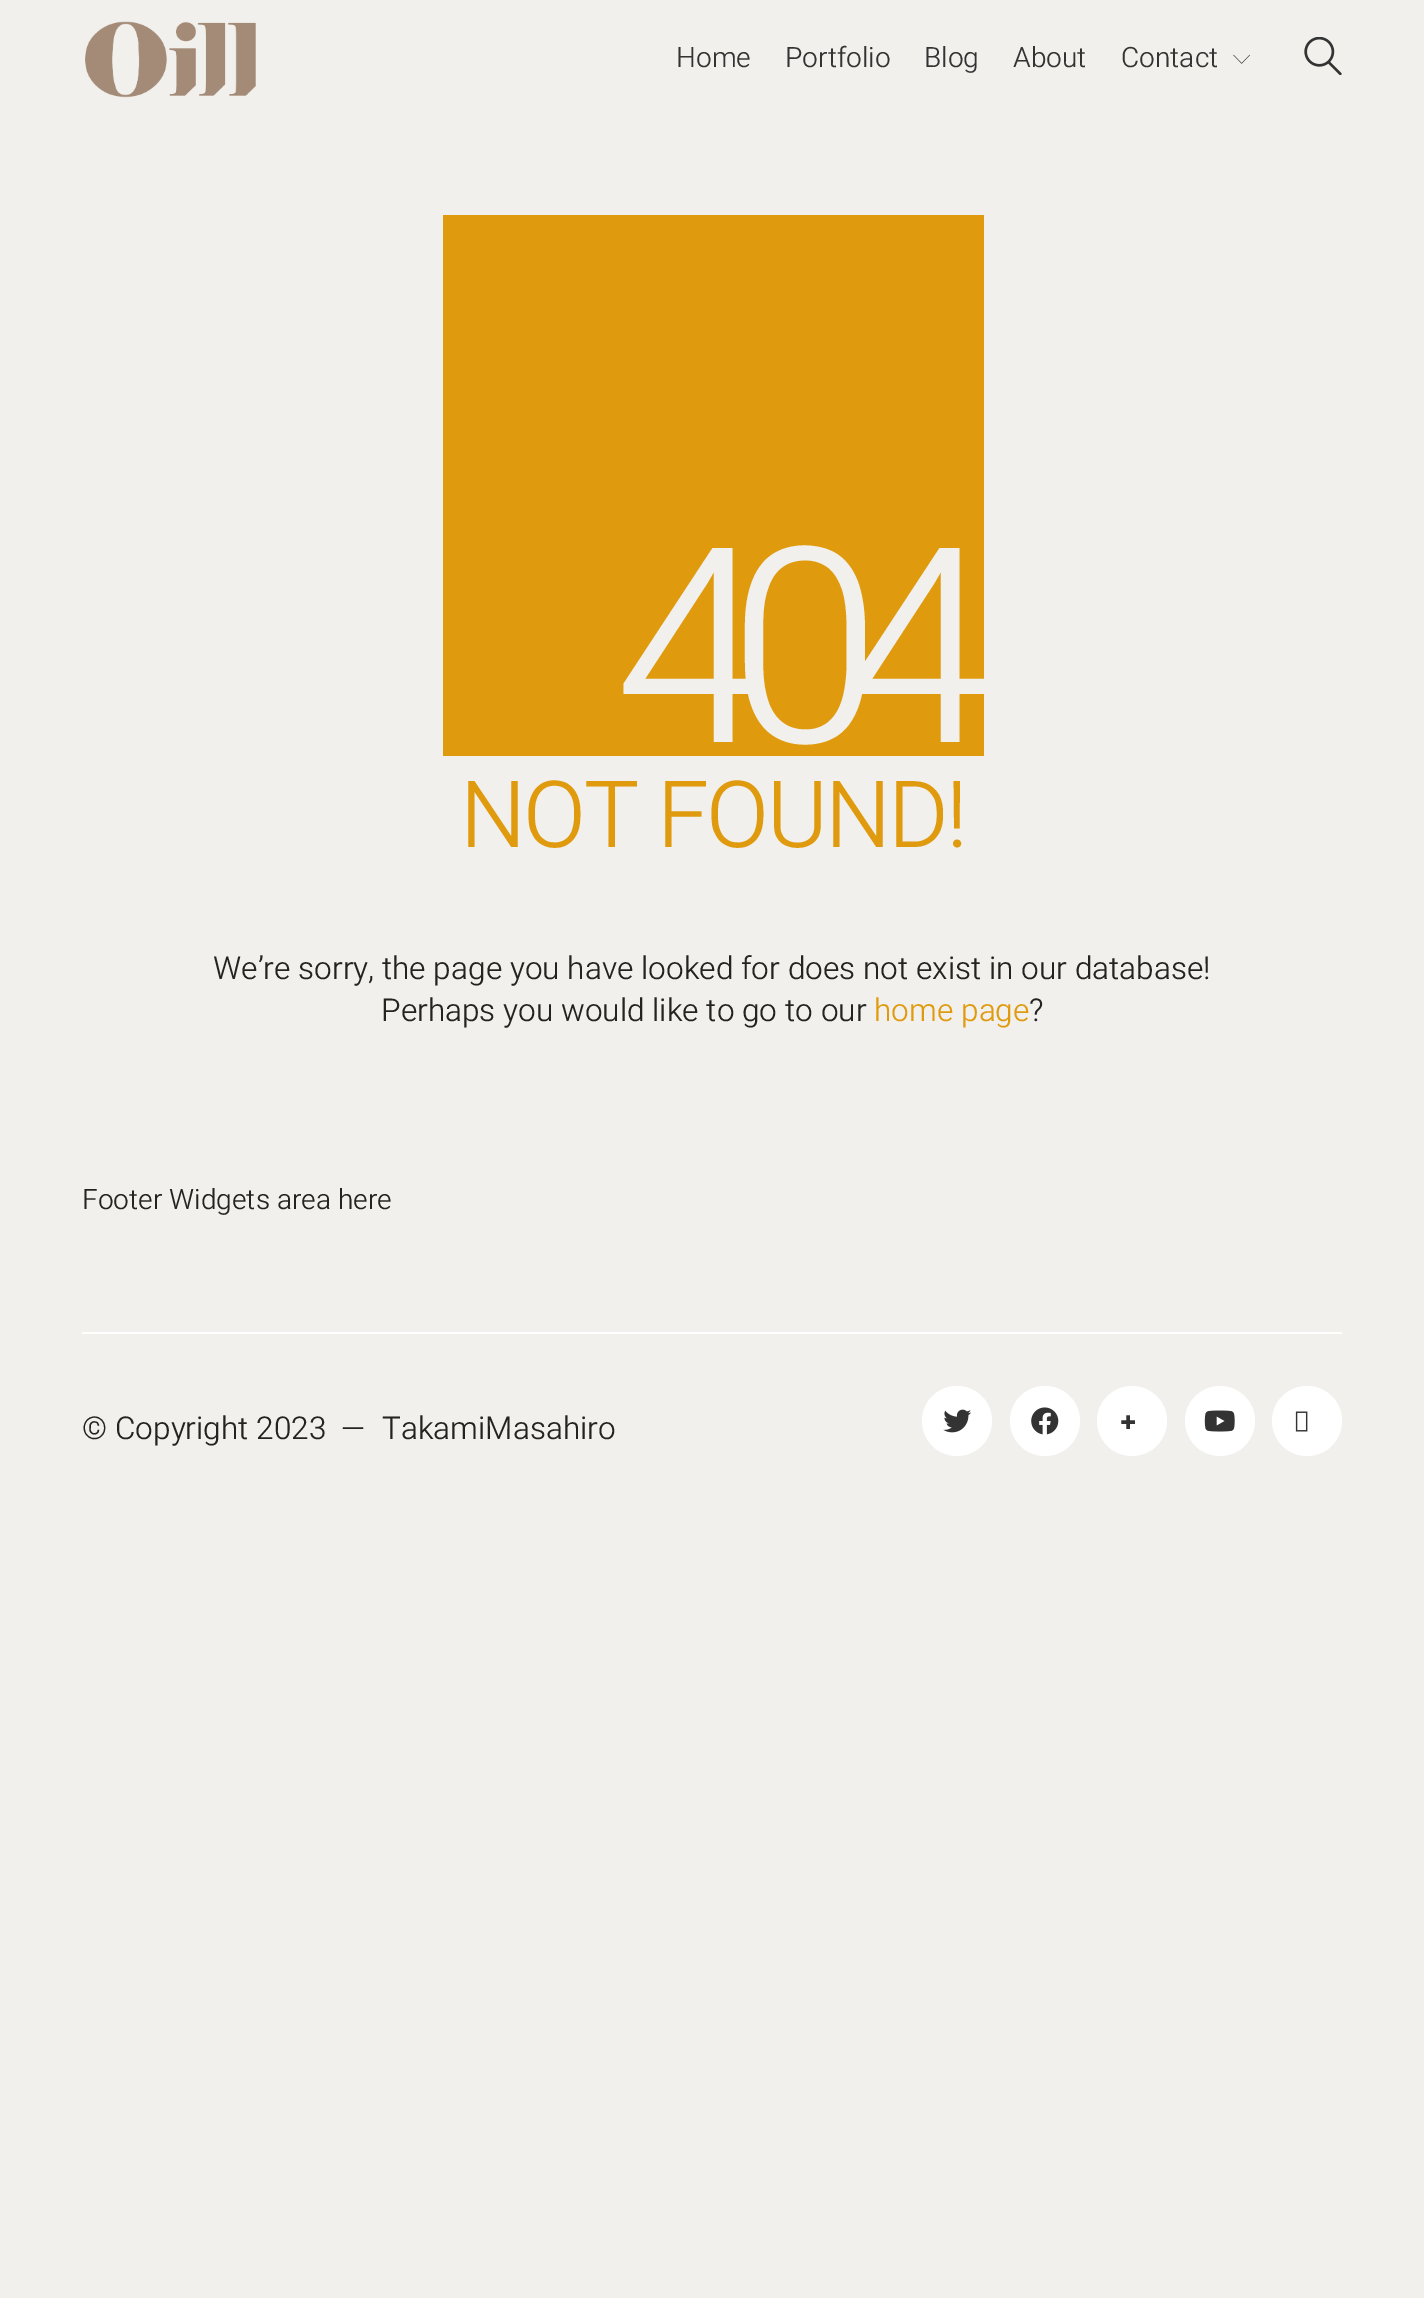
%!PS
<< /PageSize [1424 2298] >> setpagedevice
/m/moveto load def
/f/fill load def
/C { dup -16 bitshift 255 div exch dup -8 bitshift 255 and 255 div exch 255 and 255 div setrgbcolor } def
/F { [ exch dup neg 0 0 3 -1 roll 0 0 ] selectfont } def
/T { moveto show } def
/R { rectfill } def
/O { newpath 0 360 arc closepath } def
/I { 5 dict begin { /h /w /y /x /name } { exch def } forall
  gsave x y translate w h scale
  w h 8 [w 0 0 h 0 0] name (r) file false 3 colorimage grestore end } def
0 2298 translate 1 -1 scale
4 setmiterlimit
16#F2F0EC C
0 0 1424 2298 R
(1.rgb) 85 21 171 77 I
/Heebo-Light 28 F
16#333333 C
(Home) 676 67 T
(Portfolio) 785 67 T
(Blog) 924 67 T
(About) 1013 67 T
(Contact) 1121 67 T
(2.rgb) 1233 54 17 10 I
(3.rgb) 1304 37 38 38 I
16#E09A0E C
443 215 541 541 R
/Heebo-Light 273 F
16#F2F0EC C
615 742 m -52.5 0 (4 0 4) ashow
/Heebo-Light 92.75 F
16#E09A0E C
460 847 m -2.6 0 (NOT FOUND!) ashow
/Heebo-Light 31.5 F
16#242321 C
(We’re sorry, the page you have looked for does not exist in our database!) 213 979 T
(Perhaps you would like to go to our) 381 1021 T
16#E09A0E C
(home page) 874 1021 T
16#242321 C
(?) 1029 1021 T
/Heebo-Light 28 F
(Footer Widgets area here) 82 1209 T
16#FFFFFF C
82 1332 1260 2 R
/Heebo-Light 31.5 F
16#242321 C
(© Copyright 2023  —) 82 1439 T
(TakamiMasahiro) 382 1439 T
16#FFFFFF C
957 1421 35 O f
(4.rgb) 943 1409 29 24 I
1045 1421 35 O f
(5.rgb) 1031 1407 28 28 I
1132 1421 35 O f
/NotoSans-Black 28 F
16#333333 C
(+) 1120 1432 T
16#FFFFFF C
1220 1421 35 O f
(6.rgb) 1204 1410 31 22 I
1307 1421 35 O f
(7.rgb) 1295 1411 13 21 I
showpage
